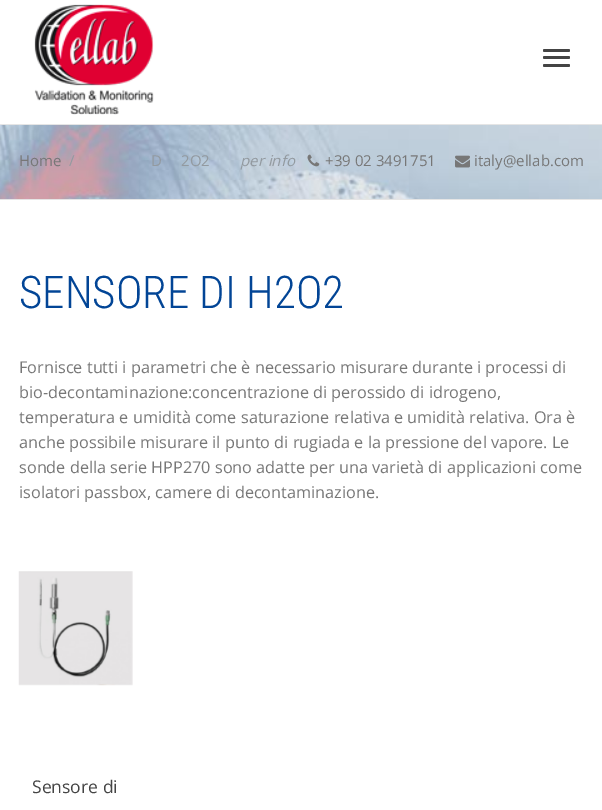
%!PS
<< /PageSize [602 810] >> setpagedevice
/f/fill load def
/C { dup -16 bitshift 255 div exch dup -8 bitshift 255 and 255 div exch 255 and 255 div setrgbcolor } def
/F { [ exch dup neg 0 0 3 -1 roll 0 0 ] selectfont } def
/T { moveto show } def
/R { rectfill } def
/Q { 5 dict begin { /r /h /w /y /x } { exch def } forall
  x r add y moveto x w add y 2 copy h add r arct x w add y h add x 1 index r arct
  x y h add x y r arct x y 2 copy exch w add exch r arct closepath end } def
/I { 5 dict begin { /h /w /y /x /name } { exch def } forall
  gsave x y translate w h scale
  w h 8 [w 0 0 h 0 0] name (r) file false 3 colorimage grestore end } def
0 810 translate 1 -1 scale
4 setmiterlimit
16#FFFFFF C
0 0 602 810 R
16#E5E5E5 C
0 124 602 1 R
(1.rgb) 34 4 120 111 I
16#444444 C
543 49 27 3 1.5 Q f
543 56 27 3 1.5 Q f
543 64 27 3 1.5 Q f
(2.rgb) 0 125 602 74 I
16#E5E5E5 C
0 199 602 1 R
/OpenSans-Regular 15 F
16#777777 C
(Home) 19 166 T
16#939AA0 C
(/) 69 166 T
(D) 151 166 T
(2O2) 181 166 T
/OpenSans-Italic 15 F
(per info) 240 166 T
(3.rgb) 307 154 13 13 I
/OpenSans-Regular 15 F
16#777777 C
(+39 02 3491751) 325 166 T
(4.rgb) 455 155 15 13 I
(italy@ellab.com) 474 166 T
/RobotoCondensed-Light 45 F
16#024596 C
(SENSORE DI H2O2) 19 308 T
/OpenSans-Regular 16.25 F
16#777777 C
(Fornisce tutti i parametri che è necessario misurare durante i processi di) 19 373 T
(bio-decontaminazione:concentrazione di perossido di idrogeno,) 19 398 T
(temperatura e umidità come saturazione relativa e umidità relativa. Ora è) 19 423 T
(anche possibile misurare il punto di rugiada e la pressione del vapore. Le) 19 448 T
(sonde della serie HPP270 sono adatte per una varietà di applicazioni come) 19 473 T
(isolatori passbox, camere di decontaminazione.) 19 498 T
(5.rgb) 18 571 115 115 I
/OpenSans-Regular 17.5 F
16#444444 C
(Sensore di) 32 793 T
showpage
